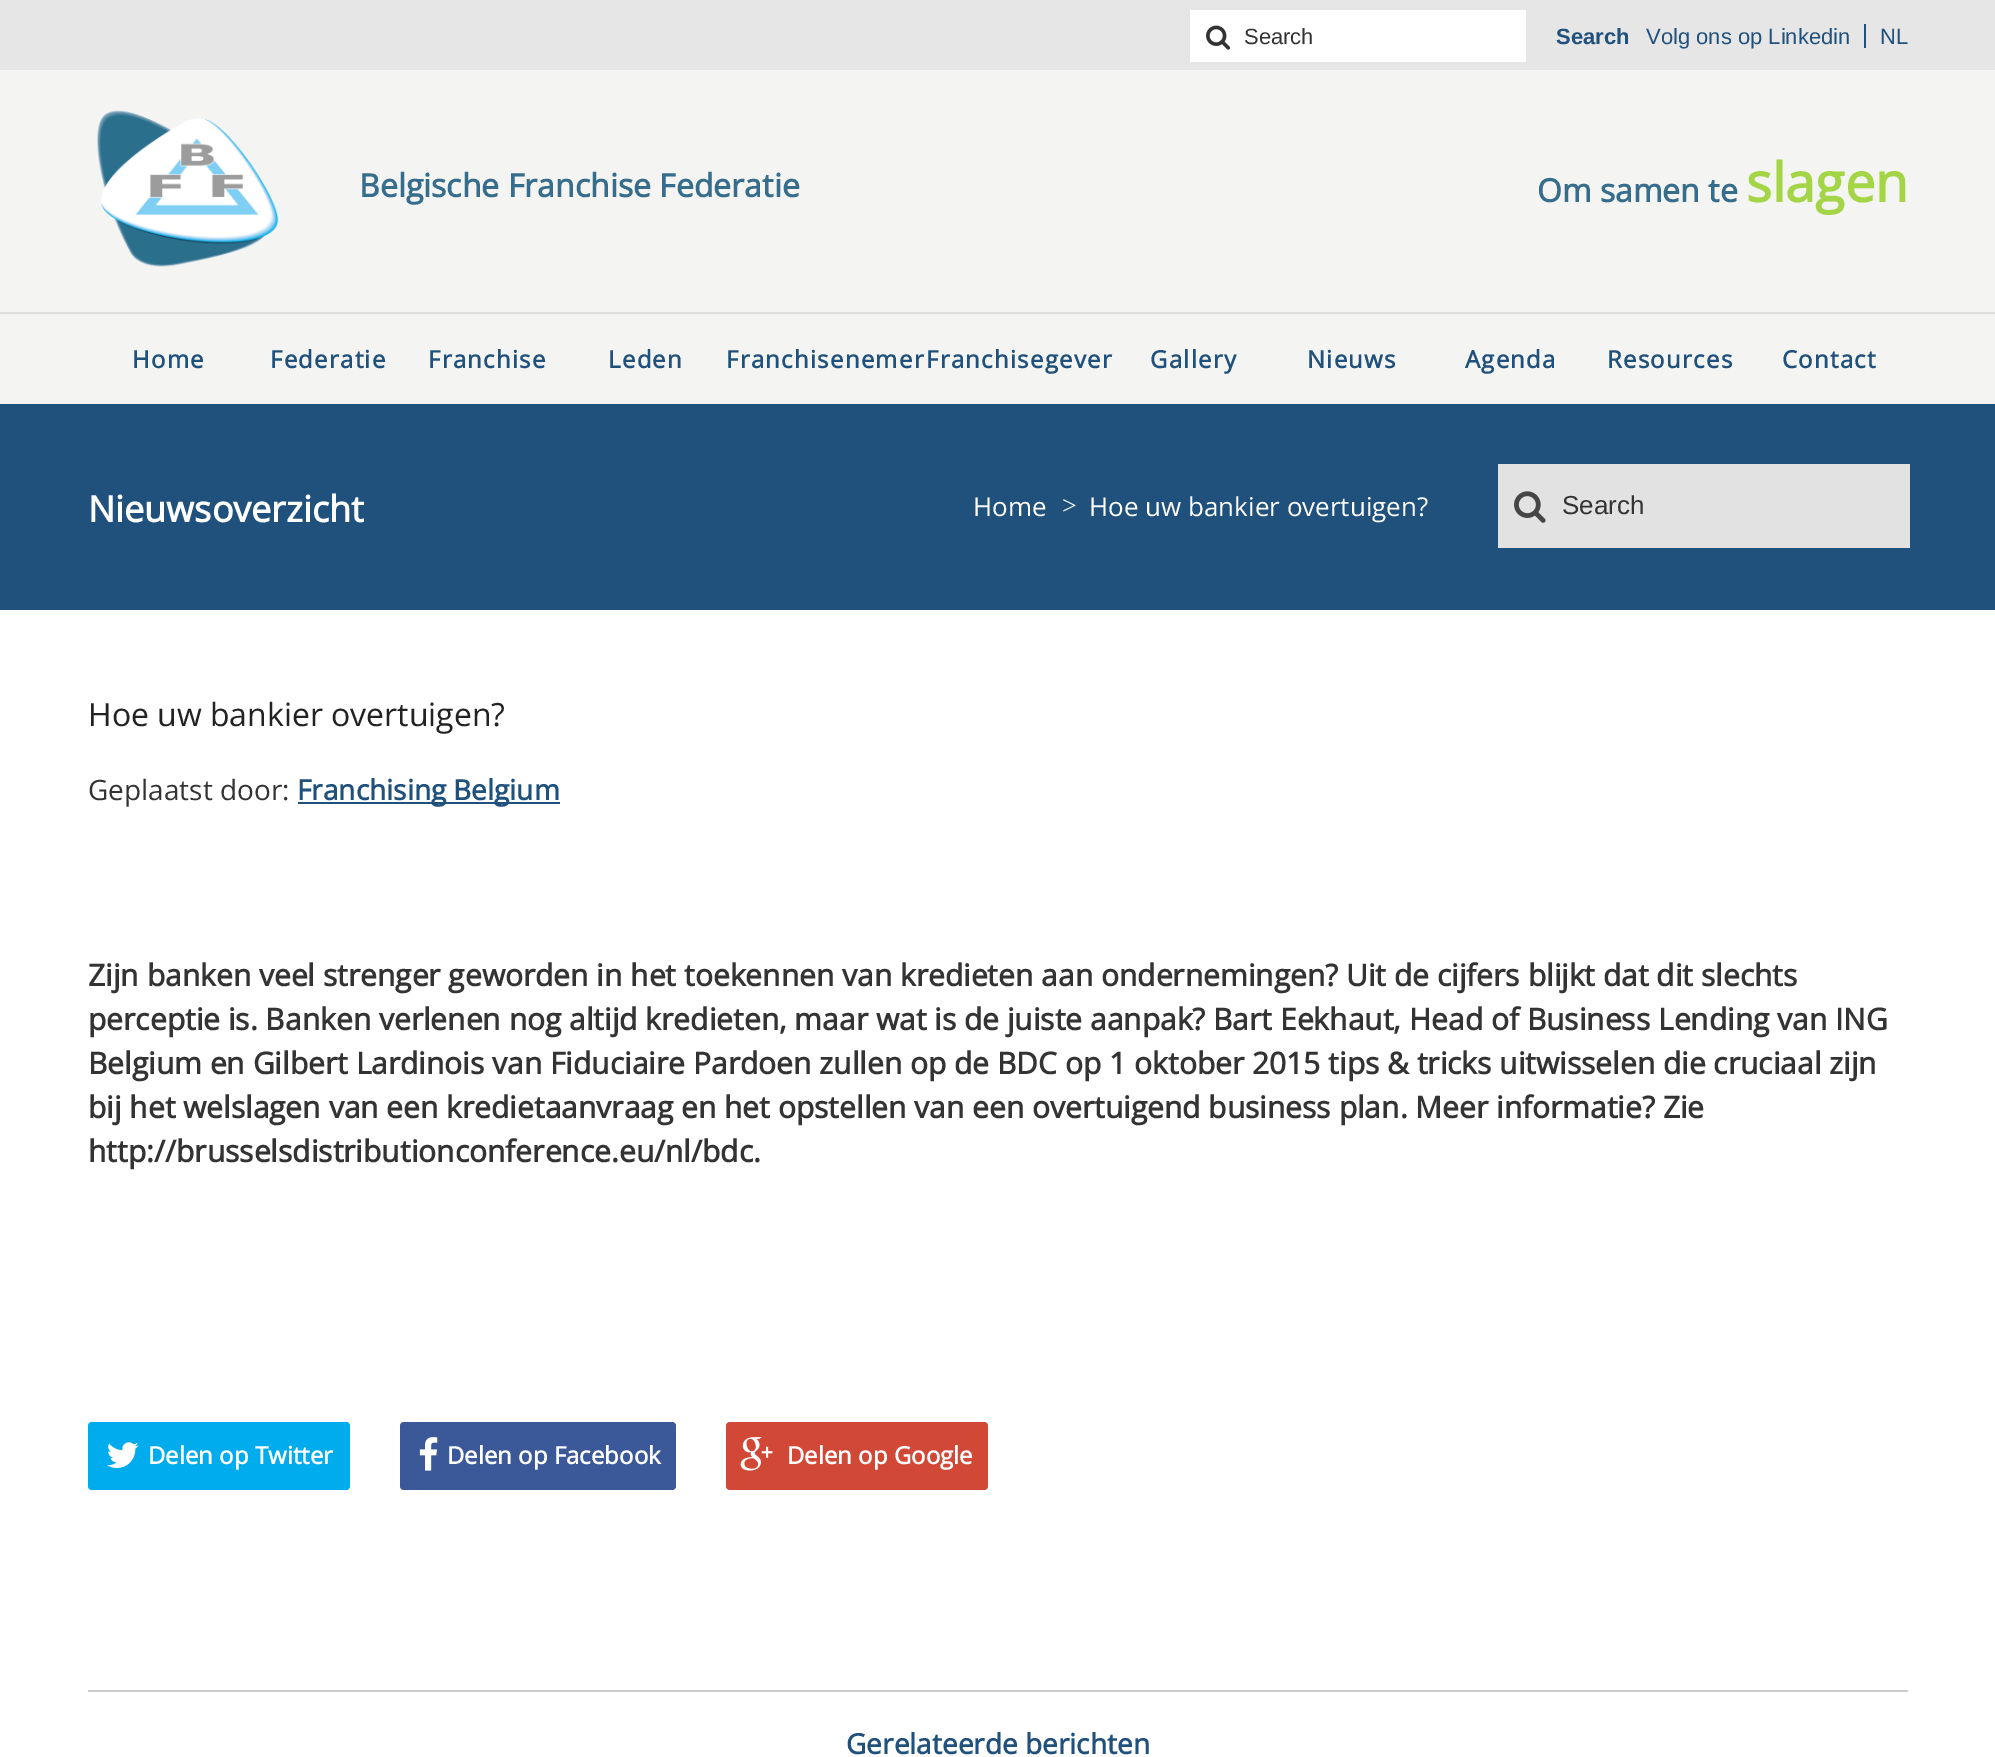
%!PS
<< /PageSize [1995 1757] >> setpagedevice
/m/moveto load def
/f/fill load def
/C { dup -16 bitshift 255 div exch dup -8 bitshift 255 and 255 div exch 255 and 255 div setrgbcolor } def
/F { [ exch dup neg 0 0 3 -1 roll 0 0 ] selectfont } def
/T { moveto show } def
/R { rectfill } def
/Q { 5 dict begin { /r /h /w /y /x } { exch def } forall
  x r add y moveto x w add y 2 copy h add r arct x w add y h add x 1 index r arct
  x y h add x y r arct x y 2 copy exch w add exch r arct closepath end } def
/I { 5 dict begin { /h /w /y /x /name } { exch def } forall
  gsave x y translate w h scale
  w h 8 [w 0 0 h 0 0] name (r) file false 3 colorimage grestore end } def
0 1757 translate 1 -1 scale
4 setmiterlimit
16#F4F4F2 C
0 0 1995 1757 R
16#E6E6E6 C
0 0 1995 70 R
16#FFFFFF C
1190 10 336 52 R
(1.rgb) 1206 25 25 25 I
/LiberationSans-Regular 22 F
16#333333 C
(Search) 1244 44 T
/LiberationSans-Bold 22 F
16#20517C C
(Search) 1556 44 T
/LiberationSans-Regular 22 F
(Volg ons op Linkedin) 1646 44 T
1864 24 2 24 R
(NL) 1880 44 T
(2.rgb) 97 110 182 157 I
/OpenSans-Bold 32 F
16#366D8D C
(Belgische Franchise Federatie) 359 197 T
(Om samen te) 1537 202 T
/OpenSans-Bold 54 F
16#A4D547 C
(slagen) 1746 202 T
16#DDDDDD C
0 312 1995 2 R
/OpenSans-Bold 24 F
16#20517C C
132 368 m 1.25 0 (Home) ashow
270 368 m 1.25 0 (Federatie) ashow
428 368 m 1.25 0 (Franchise) ashow
608 368 m 1.25 0 (Leden) ashow
726 368 m 1.25 0 (Franchisenemer) ashow
926 368 m 1.25 0 (Franchisegever) ashow
1150 368 m 1.25 0 (Gallery) ashow
1307 368 m 1.25 0 (Nieuws) ashow
1465 368 m 1.25 0 (Agenda) ashow
1607 368 m 1.25 0 (Resources) ashow
1782 368 m 1.25 0 (Contact) ashow
16#FFFFFF C
0 610 1995 1147 R
16#20517C C
0 404 1995 206 R
/OpenSans-Bold 36 F
16#FFFFFF C
(Nieuwsoverzicht) 88 522 T
/OpenSans-Regular 26 F
(Home) 973 516 T
/LiberationSerif-Regular 26 F
(>) 1062 514 T
/OpenSans-Regular 26 F
(Hoe uw bankier overtuigen?) 1089 516 T
16#E3E2E2 C
1498 464 412 84 R
(3.rgb) 1514 491 32 32 I
/LiberationSans-Regular 26 F
16#333333 C
(Search) 1562 514 T
/OpenSans-Regular 32 F
16#222222 C
(Hoe uw bankier overtuigen?) 88 726 T
/OpenSans-Regular 28 F
16#333333 C
(Geplaatst door:) 88 800 T
16#20517C C
298 802 262 2 R
/OpenSans-Bold 28 F
(Franchising Belgium) 297 800 T
/OpenSans-Bold 30 F
16#333333 C
(Zijn banken veel strenger geworden in het toekennen van kredieten aan ondernemingen? Uit de cijfers blijkt dat dit slechts) 88 986 T
(perceptie is. Banken verlenen nog altijd kredieten, maar wat is de juiste aanpak? Bart Eekhaut, Head of Business Lending van ING) 88 1030 T
(Belgium en Gilbert Lardinois van Fiduciaire Pardoen zullen op de BDC op 1 oktober 2015 tips & tricks uitwisselen die cruciaal zijn) 88 1074 T
(bij het welslagen van een kredietaanvraag en het opstellen van een overtuigend business plan. Meer informatie? Zie) 88 1118 T
(http://brusselsdistributionconference.eu/nl/bdc.) 88 1162 T
16#00ACED C
88 1422 262 68 4 Q f
(4.rgb) 107 1442 32 26 I
/OpenSans-Bold 24 F
16#FFFFFF C
(Delen op Twitter) 148 1464 T
16#3B5998 C
400 1422 276 68 4 Q f
(5.rgb) 419 1437 19 34 I
16#FFFFFF C
(Delen op Facebook) 447 1464 T
16#D14836 C
726 1422 262 68 4 Q f
(6.rgb) 740 1437 33 34 I
16#FFFFFF C
(Delen op Google) 787 1464 T
16#CCCCCC C
88 1690 1820 2 R
/OpenSans-Bold 28 F
16#20517C C
(Gerelateerde berichten) 846 1754 T
showpage
